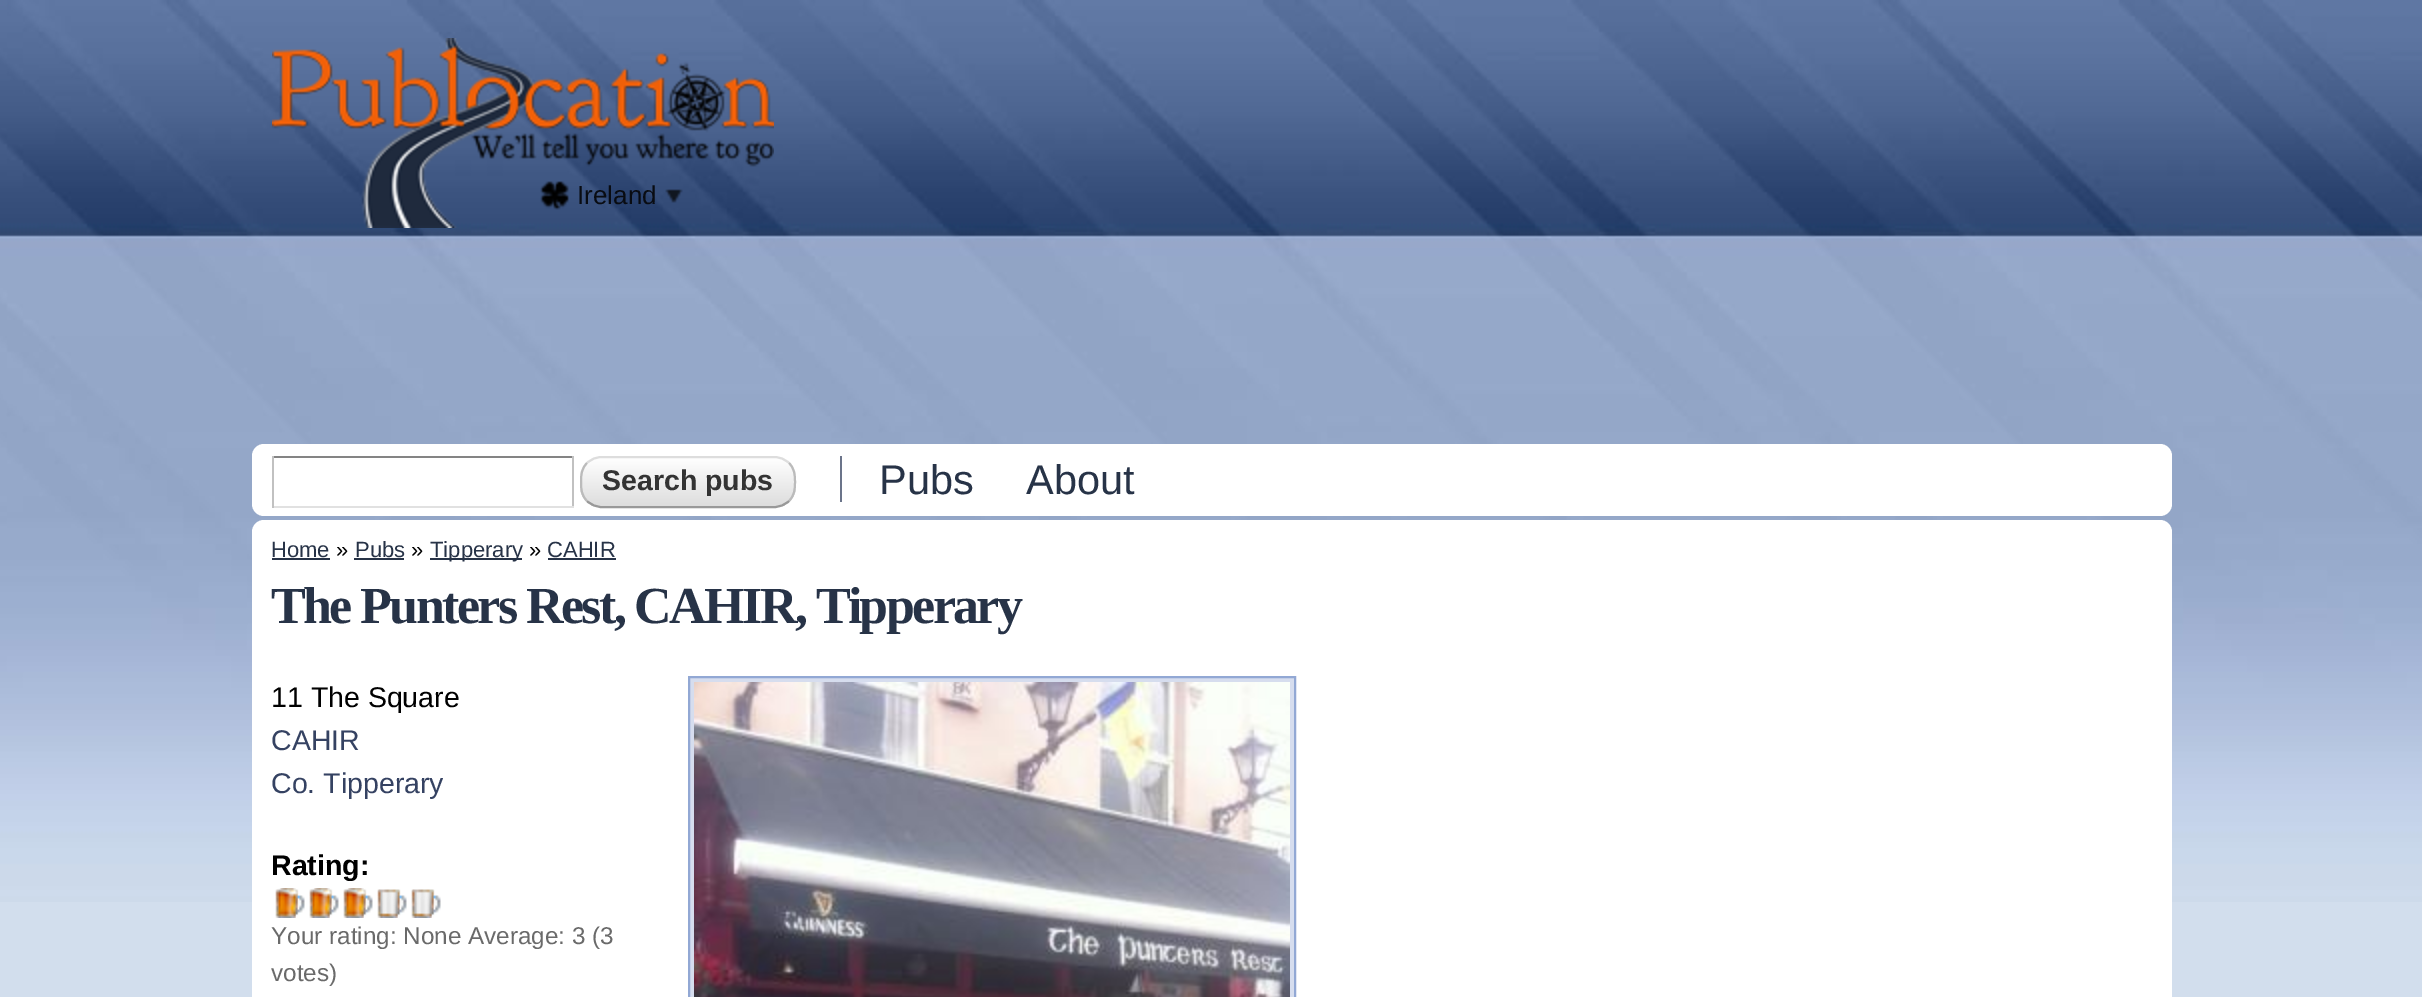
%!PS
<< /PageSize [2422 997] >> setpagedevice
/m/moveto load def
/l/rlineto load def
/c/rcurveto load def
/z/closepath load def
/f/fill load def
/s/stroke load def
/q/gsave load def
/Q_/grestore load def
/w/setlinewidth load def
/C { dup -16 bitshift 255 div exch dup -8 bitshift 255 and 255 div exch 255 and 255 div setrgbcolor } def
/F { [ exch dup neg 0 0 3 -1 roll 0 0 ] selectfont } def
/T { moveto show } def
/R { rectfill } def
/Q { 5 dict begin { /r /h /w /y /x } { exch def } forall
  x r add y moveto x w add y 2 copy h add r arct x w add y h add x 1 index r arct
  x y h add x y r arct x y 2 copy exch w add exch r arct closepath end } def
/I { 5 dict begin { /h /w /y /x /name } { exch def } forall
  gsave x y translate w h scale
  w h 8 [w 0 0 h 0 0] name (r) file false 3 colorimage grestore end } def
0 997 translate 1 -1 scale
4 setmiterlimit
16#D2DEED C
0 0 2422 997 R
(1.rgb) 0 0 2422 902 I
(2.rgb) 272 38 502 190 I
(3.rgb) 540 181 29 29 I
/LiberationSans-Regular 26 F
16#090C12 C
(Ireland) 577 204 T
(4.rgb) 665 189 18 14 I
16#FFFFFF C
252 444 1920 72 12 Q f
16#848484 C
272 456 302 2 R
16#C1C1C1 C
572 456 2 52 R
16#E1E1E1 C
272 506 302 2 R
16#C1C1C1 C
272 456 2 52 R
q
580 456 216 52 22 Q clip newpath
q 580 458 m 216 0 l 0 48 l -216 0 l z clip newpath
<< /ShadingType 2 /ColorSpace /DeviceRGB /Coords [582 458 582 506] /Extend [true true] /Function << /FunctionType 2 /Domain [0 1] /C0 [1 1 1] /C1 [.867 .867 .867] /N 1 >> >> shfill Q_
Q_
16#DDDDDD C
2 w
587 463 m 4 -4 9.5 -6 15 -6 c 172 0 l 5.5 0 11 2 15 6 c s
16#BBBBBB C
789 463 m 5.5 5.5 6 11.5 6 19 c 0 7.5 -.5 13.5 -6 19 c s
16#999999 C
789 501 m -4 4 -9.5 6 -15 6 c -172 0 l -5.5 0 -11 -2 -15 -6 c s
16#BBBBBB C
587 501 m -5.5 -5.5 -6 -11.5 -6 -19 c 0 -7.5 .5 -13.5 6 -19 c s
/LiberationSans-Bold 28.5 F
16#333333 C
(Search pubs) 602 490 T
/LiberationSans-Regular 41.5 F
16#273347 C
(Pubs) 879 494 T
16#6B748A C
840 456 2 46 R
16#273347 C
(About) 1026 494 T
16#FFFFFF C
252 520 1920 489 12 Q f
/LiberationSans-Regular 22 F
16#273347 C
(Home) 271 557 T
272 558 58 2 R
16#000000 C
(») 336 557 T
16#273347 C
(Pubs) 355 557 T
354 558 50 2 R
16#000000 C
(») 411 557 T
16#273347 C
430 558 92 2 R
(Tipperary) 430 557 T
16#000000 C
(») 529 557 T
16#273347 C
(CAHIR) 547 557 T
548 558 68 2 R
/LiberationSerif-Bold 52 F
271 623 m -2.6 0 (The Punters Rest, CAHIR, Tipperary) ashow
/LiberationSans-Regular 28.5 F
16#000000 C
(11 The Square) 271 707 T
16#354262 C
(CAHIR) 271 750 T
(Co. Tipperary) 271 793 T
/LiberationSans-Bold 28.5 F
16#000000 C
(Rating:) 271 875 T
(5.rgb) 275 889 30 29 I
(6.rgb) 275 888 30 30 I
(7.rgb) 309 889 30 29 I
(8.rgb) 309 888 30 30 I
(7.rgb) 343 889 30 29 I
(8.rgb) 343 888 30 30 I
(7.rgb) 377 889 30 29 I
(9.rgb) 377 889 30 29 I
(5.rgb) 411 889 30 29 I
(10.rgb) 411 889 30 29 I
/LiberationSans-Regular 24.25 F
16#6A6A6A C
(Your rating: None Average: 3 \(3) 271 944 T
(votes\)) 271 981 T
16#D6DDEE C
689 677 m 606 0 l 0 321 l -606 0 l z q f Q_
16#92A8D4 C
s
(11.rgb) 694 682 596 315 I
showpage
